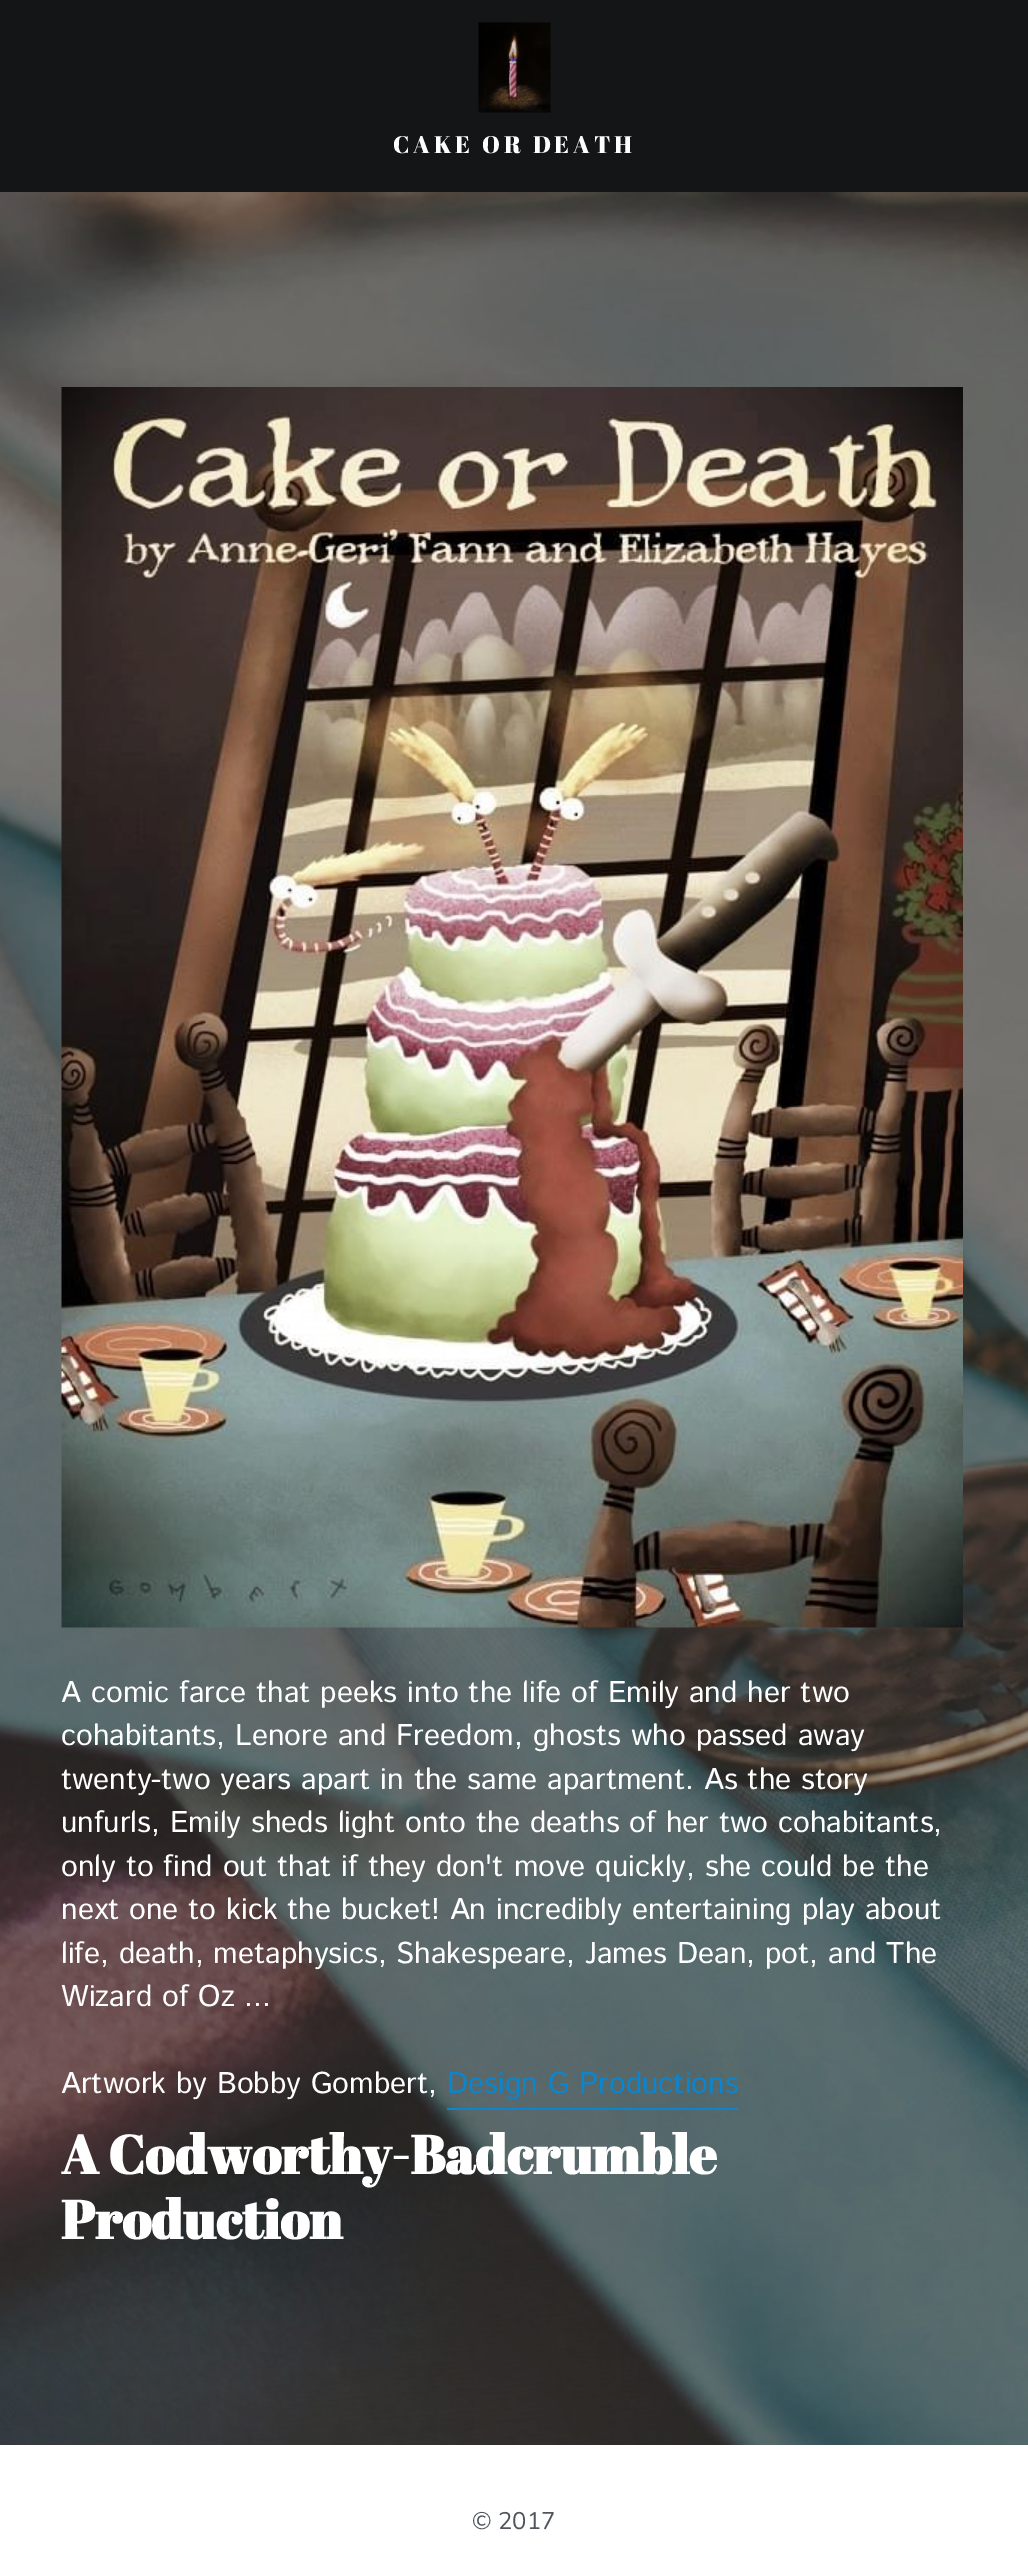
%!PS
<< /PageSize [1028 2553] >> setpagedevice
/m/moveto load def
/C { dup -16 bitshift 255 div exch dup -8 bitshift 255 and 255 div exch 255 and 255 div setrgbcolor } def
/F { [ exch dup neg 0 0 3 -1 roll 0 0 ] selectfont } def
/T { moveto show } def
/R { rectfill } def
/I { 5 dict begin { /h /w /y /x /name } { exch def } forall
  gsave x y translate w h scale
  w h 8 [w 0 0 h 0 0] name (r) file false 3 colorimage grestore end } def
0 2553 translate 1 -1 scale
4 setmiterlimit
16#FFFFFF C
0 0 1028 2553 R
16#141517 C
0 0 1028 192 R
(1.rgb) 478 22 73 91 I
/AbrilFatface-Regular 24 F
16#FFFFFF C
393 153 m 3.75 0 (CAKE OR DEATH) ashow
(2.rgb) 0 192 1028 2253 I
(3.rgb) 61 387 902 1241 I
/IstokWeb-Regular 30 F
(A comic farce that peeks into the life of Emily and her two) 61 1702 T
(cohabitants, Lenore and Freedom, ghosts who passed away) 61 1745 T
(twenty-two years apart in the same apartment. As the story) 61 1789 T
(unfurls, Emily sheds light onto the deaths of her two cohabitants,) 61 1832 T
(only to find out that if they don't move quickly, she could be the) 61 1876 T
(next one to kick the bucket! An incredibly entertaining play about) 61 1919 T
(life, death, metaphysics, Shakespeare, James Dean, pot, and The) 61 1963 T
(Wizard of Oz ...) 61 2006 T
(Artwork by Bobby Gombert,) 61 2093 T
16#0C85CC C
(Design G Productions) 447 2093 T
447 2108 291 2 R
/AbrilFatface-Bold 54 F
16#FFFFFF C
(A Codworthy-Badcrumble) 61 2174 T
(Production) 61 2239 T
/Nunito-Regular 24 F
16#50555C C
(© 2017) 472 2529 T
showpage
